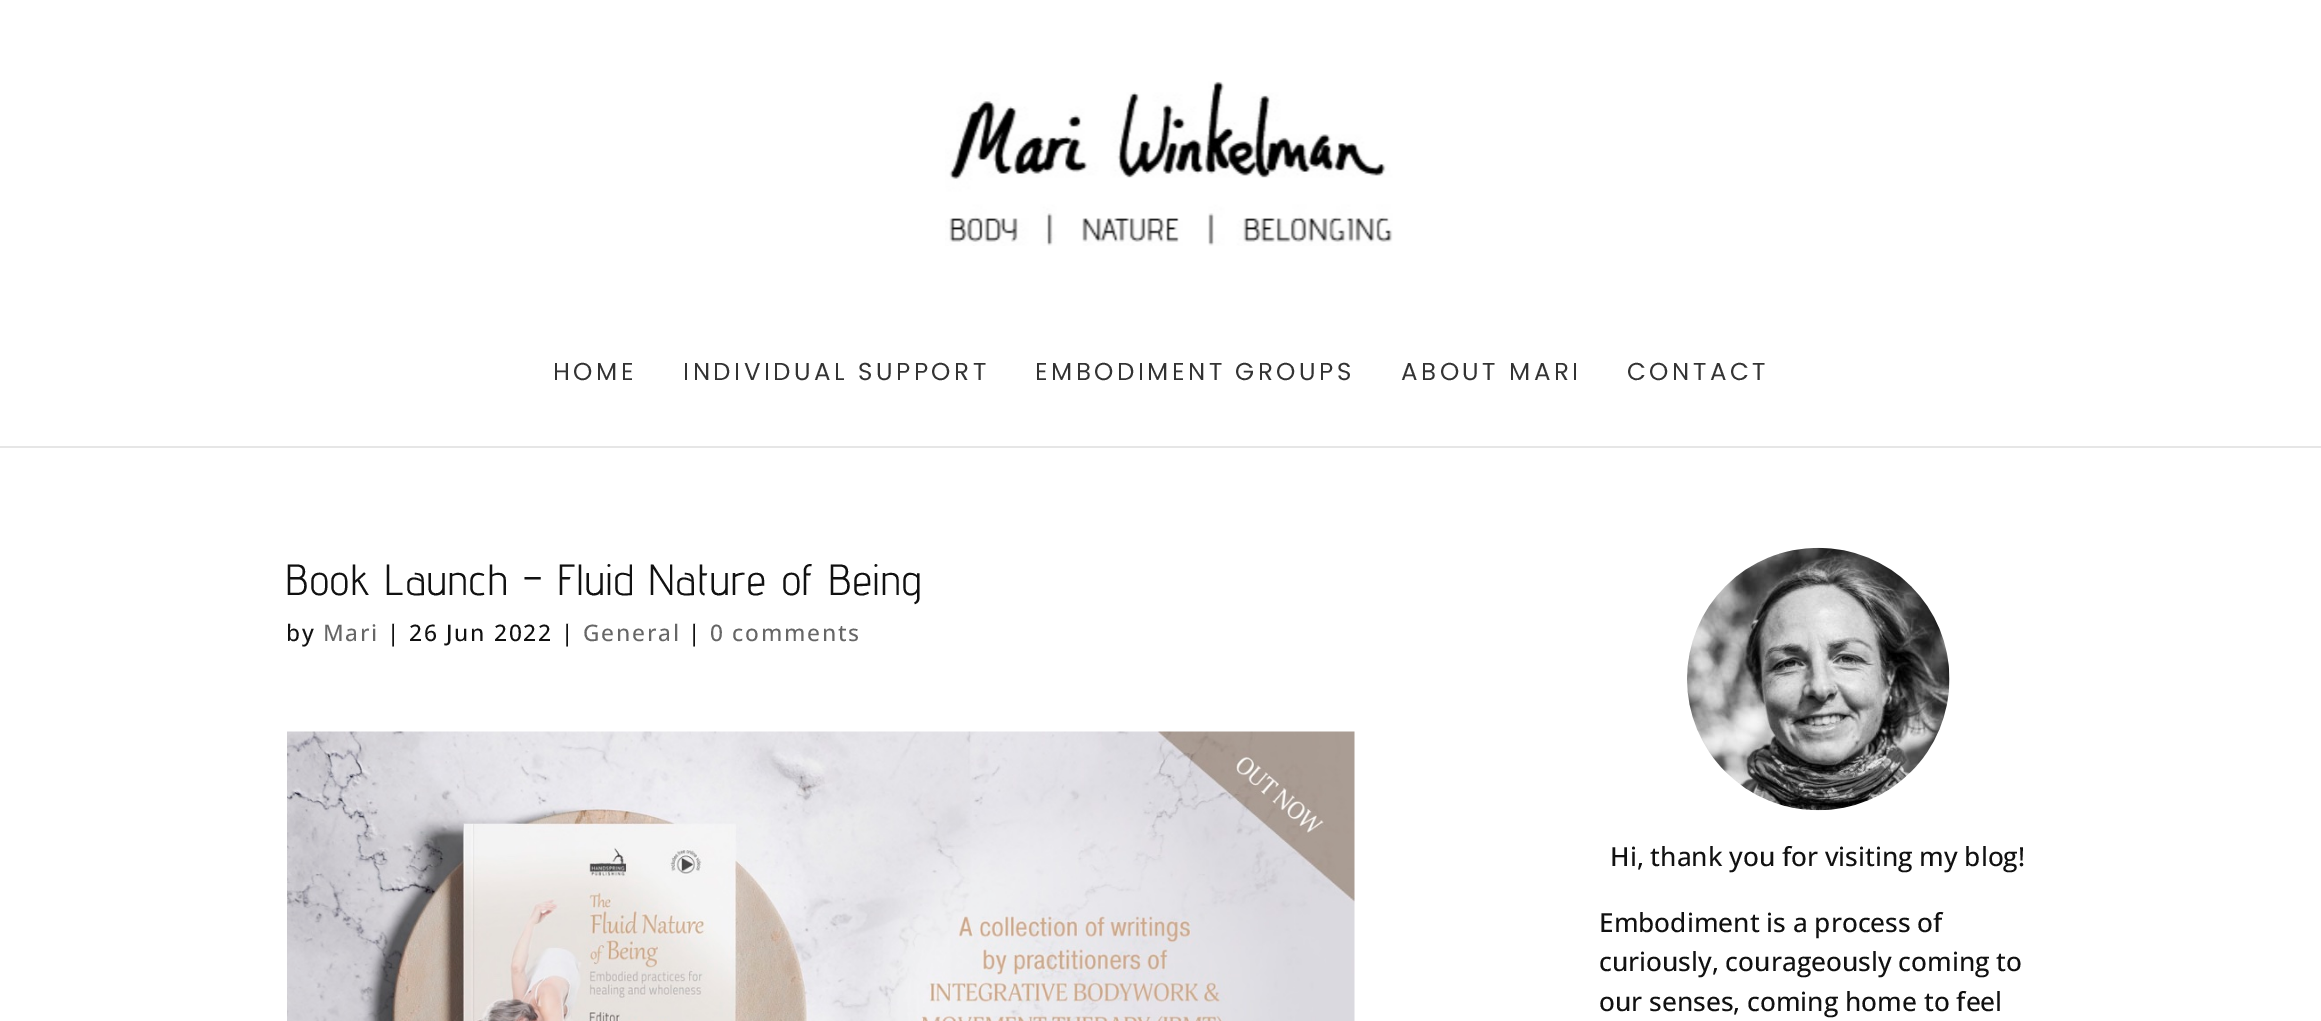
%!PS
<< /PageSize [2321 1021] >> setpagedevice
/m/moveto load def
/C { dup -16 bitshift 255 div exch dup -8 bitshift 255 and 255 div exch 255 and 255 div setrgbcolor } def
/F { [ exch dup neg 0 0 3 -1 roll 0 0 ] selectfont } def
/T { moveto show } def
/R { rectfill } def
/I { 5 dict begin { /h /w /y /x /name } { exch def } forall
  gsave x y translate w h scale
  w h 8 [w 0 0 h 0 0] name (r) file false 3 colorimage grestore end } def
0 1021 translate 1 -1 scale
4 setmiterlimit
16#FFFFFF C
0 0 2321 1021 R
16#E6E6E6 C
0 446 2321 2 R
(1.rgb) 945 81 448 165 I
/Poppins-Regular 24.5 F
16#333333 C
553 380 m 3.5 0 (HOME) ashow
683 380 m 3.5 0 (INDIVIDUAL SUPPORT) ashow
1035 380 m 3.5 0 (EMBODIMENT GROUPS) ashow
1401 380 m 3.5 0 (ABOUT MARI) ashow
1627 380 m 3.5 0 (CONTACT) ashow
/AdventPro-Regular 43.75 F
16#111111 C
286 595 m 1.75 0 (Book Launch – Fluid Nature of Being) ashow
/OpenSans-Medium 22.75 F
286 641 m 1.75 0 (by) ashow
16#666666 C
323 641 m 1.75 0 (Mari) ashow
16#111111 C
387 641 m 1.75 0 (| 26 Jun 2022 |) ashow
16#666666 C
583 641 m 1.75 0 (General) ashow
16#111111 C
688 641 m 1.75 0 (|) ashow
16#666666 C
710 641 m 1.75 0 (0 comments) ashow
(2.rgb) 287 731 1068 290 I
(3.rgb) 1687 547 263 264 I
/OpenSans-Medium 26.25 F
16#111111 C
(Hi, thank you for visiting my blog!) 1610 866 T
(Embodiment is a process of) 1599 932 T
(curiously, courageously coming to) 1599 971 T
(our senses, coming home to feel) 1599 1011 T
showpage
